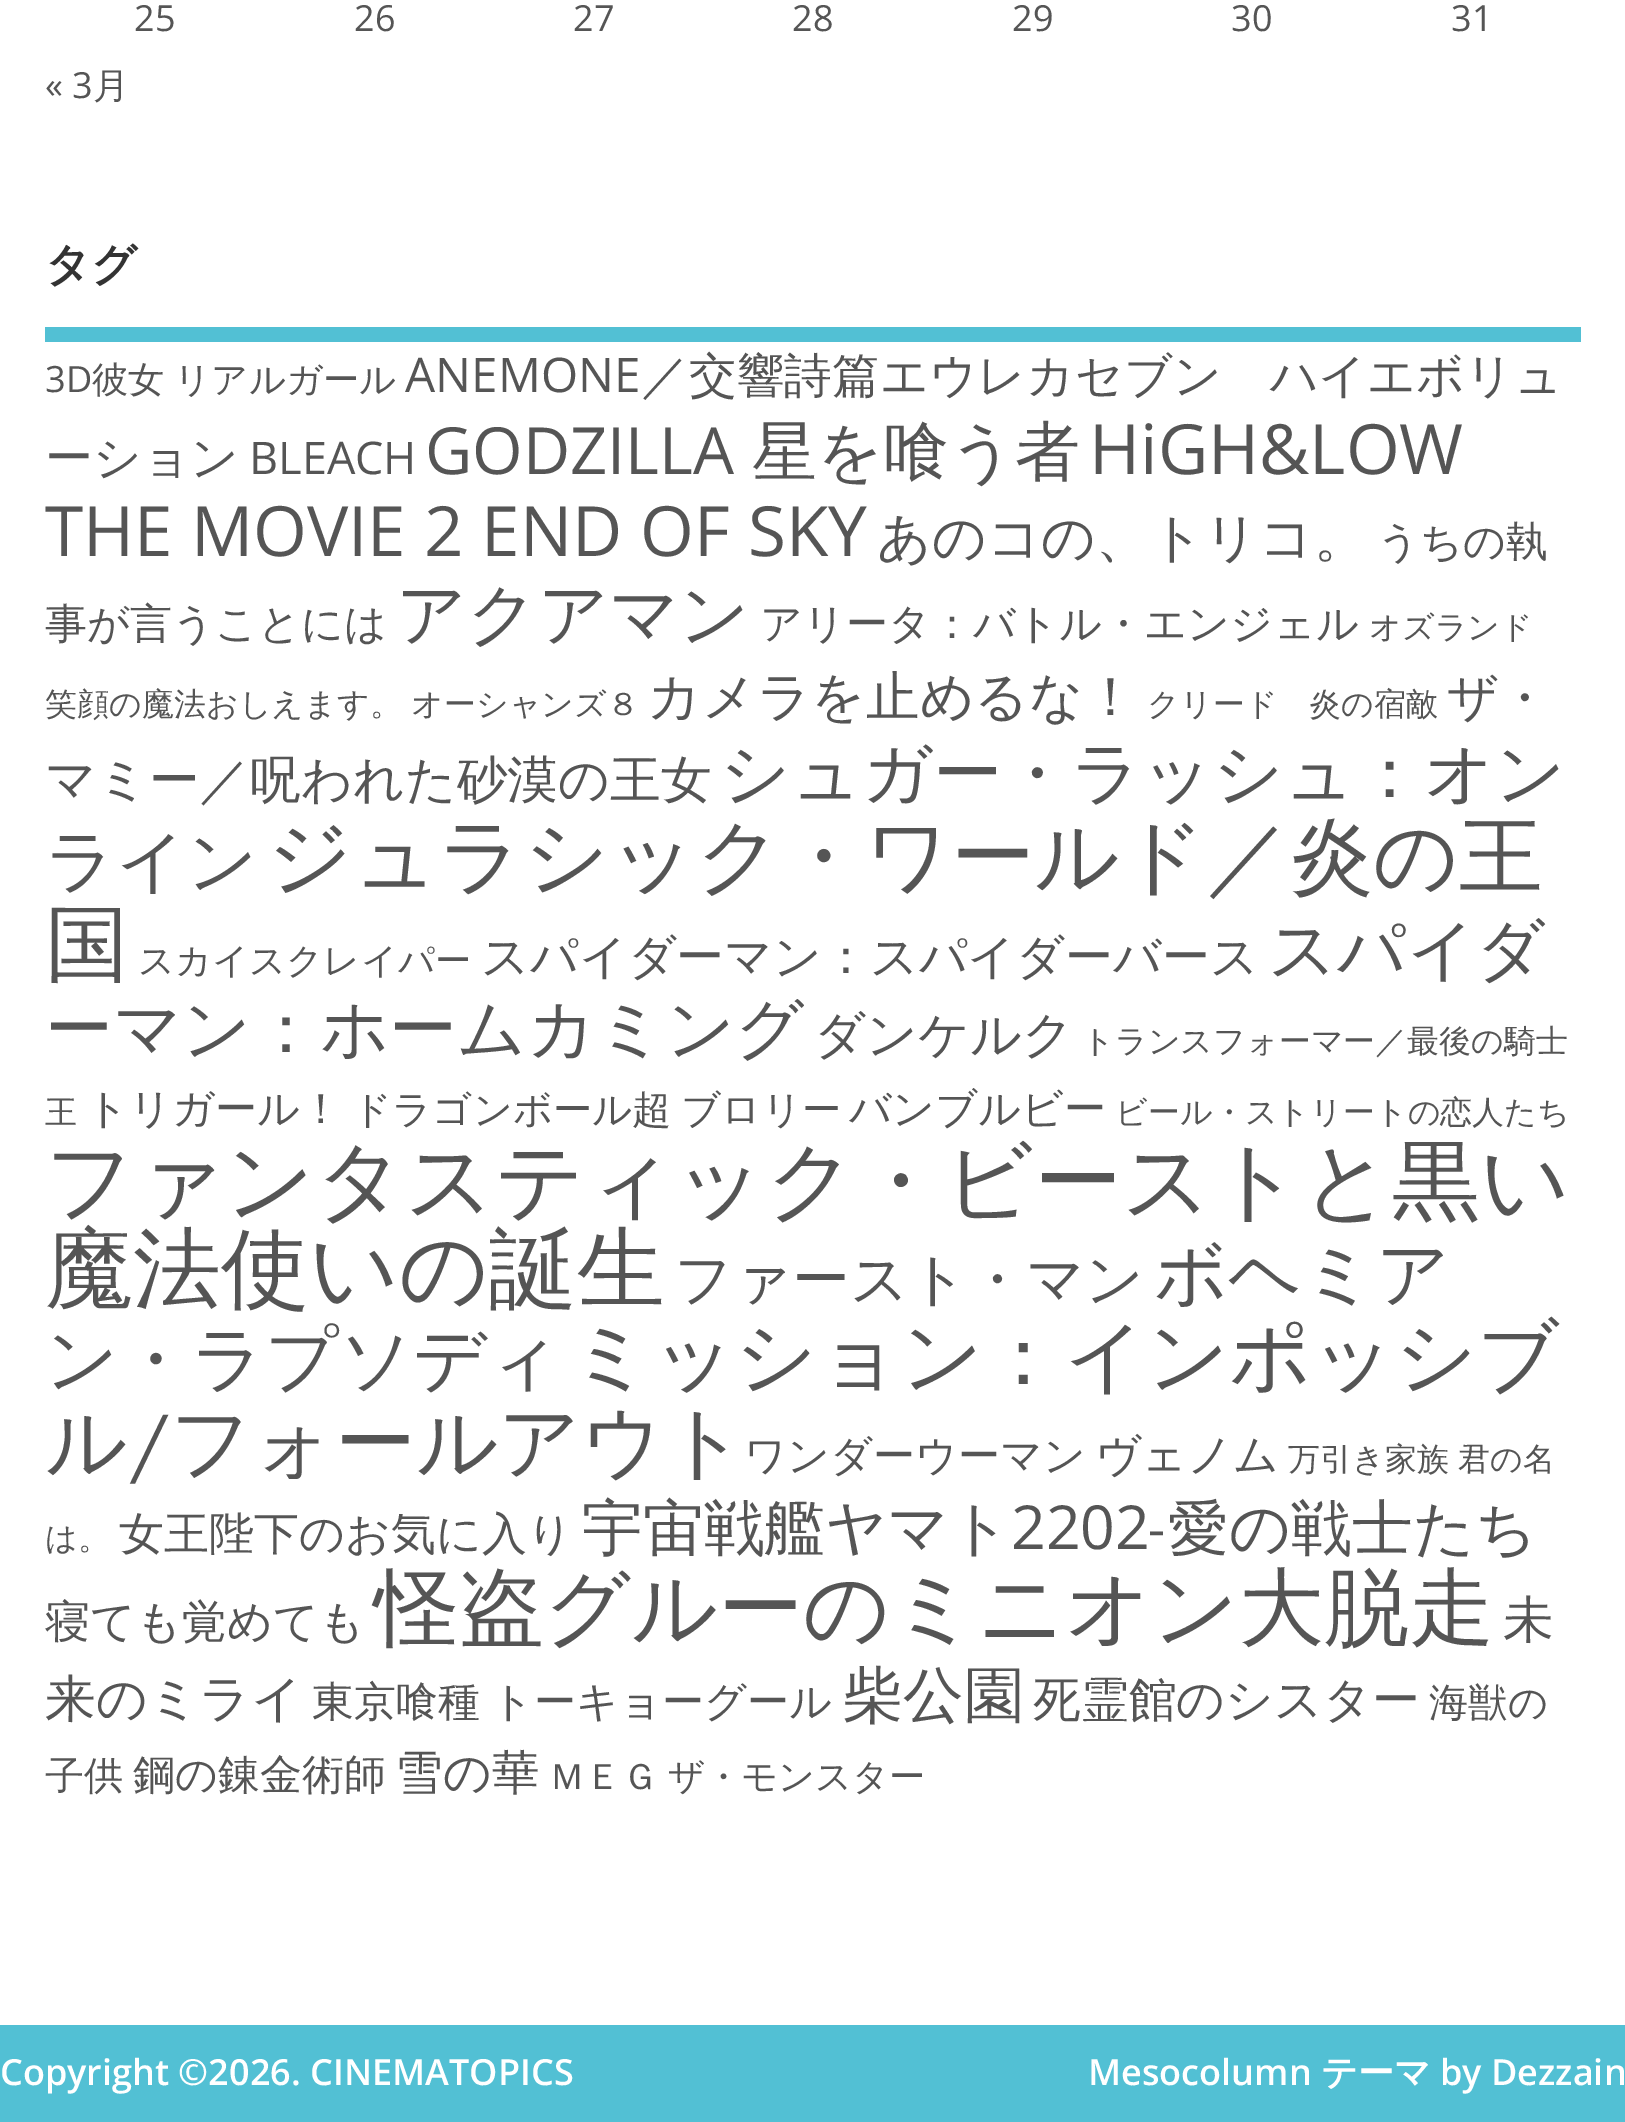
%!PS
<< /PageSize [1625 2122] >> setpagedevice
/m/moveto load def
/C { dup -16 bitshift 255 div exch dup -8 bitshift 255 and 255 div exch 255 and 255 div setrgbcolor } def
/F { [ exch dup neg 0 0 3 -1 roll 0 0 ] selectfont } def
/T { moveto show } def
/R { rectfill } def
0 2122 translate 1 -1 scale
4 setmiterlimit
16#FFFFFF C
0 0 1625 2122 R
/OpenSans-Regular 36 F
16#555555 C
(25) 134 31 T
(26) 354 31 T
(27) 573 31 T
(28) 792 31 T
(29) 1012 31 T
(30) 1231 31 T
(31) 1451 31 T
(« 3) 45 98 T
/WenQuanYiZenHei-Medium 36 F
(月) 93 98 T
16#52C0D4 C
45 327 1536 15 R
/WenQuanYiZenHei-Bold 45 F
16#333333 C
(タグ) 45 280 T
/OpenSans-Regular 36.25 F
16#555555 C
(3D) 45 392 T
/WenQuanYiZenHei-Medium 36.25 F
92 392 m -1 0 32 (彼女 リアルガール) widthshow
/OpenSans-Regular 47.75 F
(ANEMONE) 405 392 T
/WenQuanYiZenHei-Medium 47.75 F
(／交響詩篇エウレカセブン　ハイエボリュ) 641 392 T
(ーション) 45 474 T
/OpenSans-Regular 45 F
(BLEACH) 249 474 T
/OpenSans-Regular 65 F
(GODZILLA) 425 474 T
/WenQuanYiZenHei-Medium 65 F
(星を喰う者) 752 474 T
/OpenSans-Regular 69.25 F
(HiGH&LOW) 1089 474 T
(THE MOVIE 2 END OF SKY) 45 556 T
/WenQuanYiZenHei-Medium 53.5 F
(あのコの、トリコ。) 877 556 T
/WenQuanYiZenHei-Medium 42 F
(うちの執) 1377 556 T
(事が言うことには) 45 638 T
/WenQuanYiZenHei-Medium 69.25 F
(アクアマン) 396 638 T
/WenQuanYiZenHei-Medium 42 F
(アリータ：バトル・エンジェル) 760 638 T
/WenQuanYiZenHei-Medium 32 F
(オズランド) 1369 638 T
(笑顔の魔法おしえます。) 45 715 T
(オーシャンズ８) 411 715 T
/WenQuanYiZenHei-Medium 53.5 F
(カメラを止めるな！) 647 715 T
/WenQuanYiZenHei-Medium 32 F
(クリード　炎の宿敵) 1147 715 T
/WenQuanYiZenHei-Medium 50.7 F
(ザ・) 1447 715 T
(マミー／呪われた砂漠の王女) 45 797 T
/WenQuanYiZenHei-Medium 69.25 F
(シュガー・ラッシュ：オン) 720 797 T
(ライン) 45 885 T
/WenQuanYiZenHei-Medium 83.75 F
(ジュラシック・ワールド／炎の王) 267 885 T
(国) 45 973 T
/WenQuanYiZenHei-Medium 36.25 F
(スカイスクレイパー) 138 973 T
/WenQuanYiZenHei-Medium 47.75 F
(スパイダーマン：スパイダーバース) 481 973 T
/WenQuanYiZenHei-Medium 67.9 F
(スパイダ) 1268 973 T
(ーマン：ホームカミング) 45 1052 T
/WenQuanYiZenHei-Medium 50.7 F
(ダンケルク) 814 1052 T
/WenQuanYiZenHei-Medium 32 F
(トランスフォーマー／最後の騎士) 1082 1052 T
(王) 45 1123 T
/WenQuanYiZenHei-Medium 42 F
(トリガール！) 86 1123 T
/WenQuanYiZenHei-Medium 39.25 F
352 1123 m -2 0 32 (ドラゴンボール超 ブロリー) widthshow
/WenQuanYiZenHei-Medium 42 F
(バンブルビー) 849 1123 T
/WenQuanYiZenHei-Medium 32 F
(ビール・ストリートの恋人たち) 1115 1123 T
/WenQuanYiZenHei-Medium 88 F
(ファンタスティック・ビーストと黒い) 45 1211 T
(魔法使いの誕生) 45 1299 T
/WenQuanYiZenHei-Medium 57.75 F
(ファースト・マン) 674 1299 T
/WenQuanYiZenHei-Medium 72.25 F
(ボヘミア) 1154 1299 T
(ン・ラプソディ) 45 1384 T
/WenQuanYiZenHei-Medium 80.75 F
(ミッション：インポッシブ) 570 1384 T
(ル/フォールアウト) 45 1470 T
/WenQuanYiZenHei-Medium 42 F
(ワンダーウーマン) 744 1470 T
/WenQuanYiZenHei-Medium 45 F
(ヴェノム) 1095 1470 T
/WenQuanYiZenHei-Medium 32 F
(万引き家族) 1288 1470 T
(君の名) 1458 1470 T
(は。) 45 1549 T
/WenQuanYiZenHei-Medium 45 F
(女王陛下のお気に入り) 119 1549 T
/WenQuanYiZenHei-Medium 60.75 F
(宇宙戦艦ヤマト) 582 1549 T
/OpenSans-Regular 60.75 F
(2202) 1011 1549 T
/WenQuanYiZenHei-Medium 60.75 F
(-愛の戦士たち) 1150 1549 T
/WenQuanYiZenHei-Medium 45 F
(寝ても覚めても) 45 1637 T
/WenQuanYiZenHei-Medium 85.1 F
(怪盗グルーのミニオン大脱走) 374 1637 T
/WenQuanYiZenHei-Medium 50.7 F
(未) 1503 1637 T
(来のミライ) 45 1716 T
/WenQuanYiZenHei-Medium 42 F
312 1716 m -2 0 32 (東京喰種 トーキョーグール) widthshow
/WenQuanYiZenHei-Medium 60.75 F
(柴公園) 842 1716 T
/WenQuanYiZenHei-Medium 47.75 F
(死霊館のシスター) 1033 1716 T
/WenQuanYiZenHei-Medium 39.25 F
(海獣の) 1429 1716 T
(子供) 45 1789 T
/WenQuanYiZenHei-Medium 42 F
(鋼の錬金術師) 133 1789 T
/WenQuanYiZenHei-Medium 47.75 F
(雪の華) 395 1789 T
/WenQuanYiZenHei-Medium 36.25 F
549 1789 m -1 0 32 (ＭＥＧ ザ・モンスター) widthshow
16#52C0D4 C
0 2025 1625 97 R
/OpenSans-SemiBold 36 F
16#FFFFFF C
(Copyright ©2026. CINEMATOPICS) 0 2085 T
(Mesocolumn) 1088 2085 T
/WenQuanYiZenHei-Bold 36 F
(テーマ) 1321 2085 T
/OpenSans-SemiBold 36 F
(by Dezzain) 1440 2085 T
showpage
